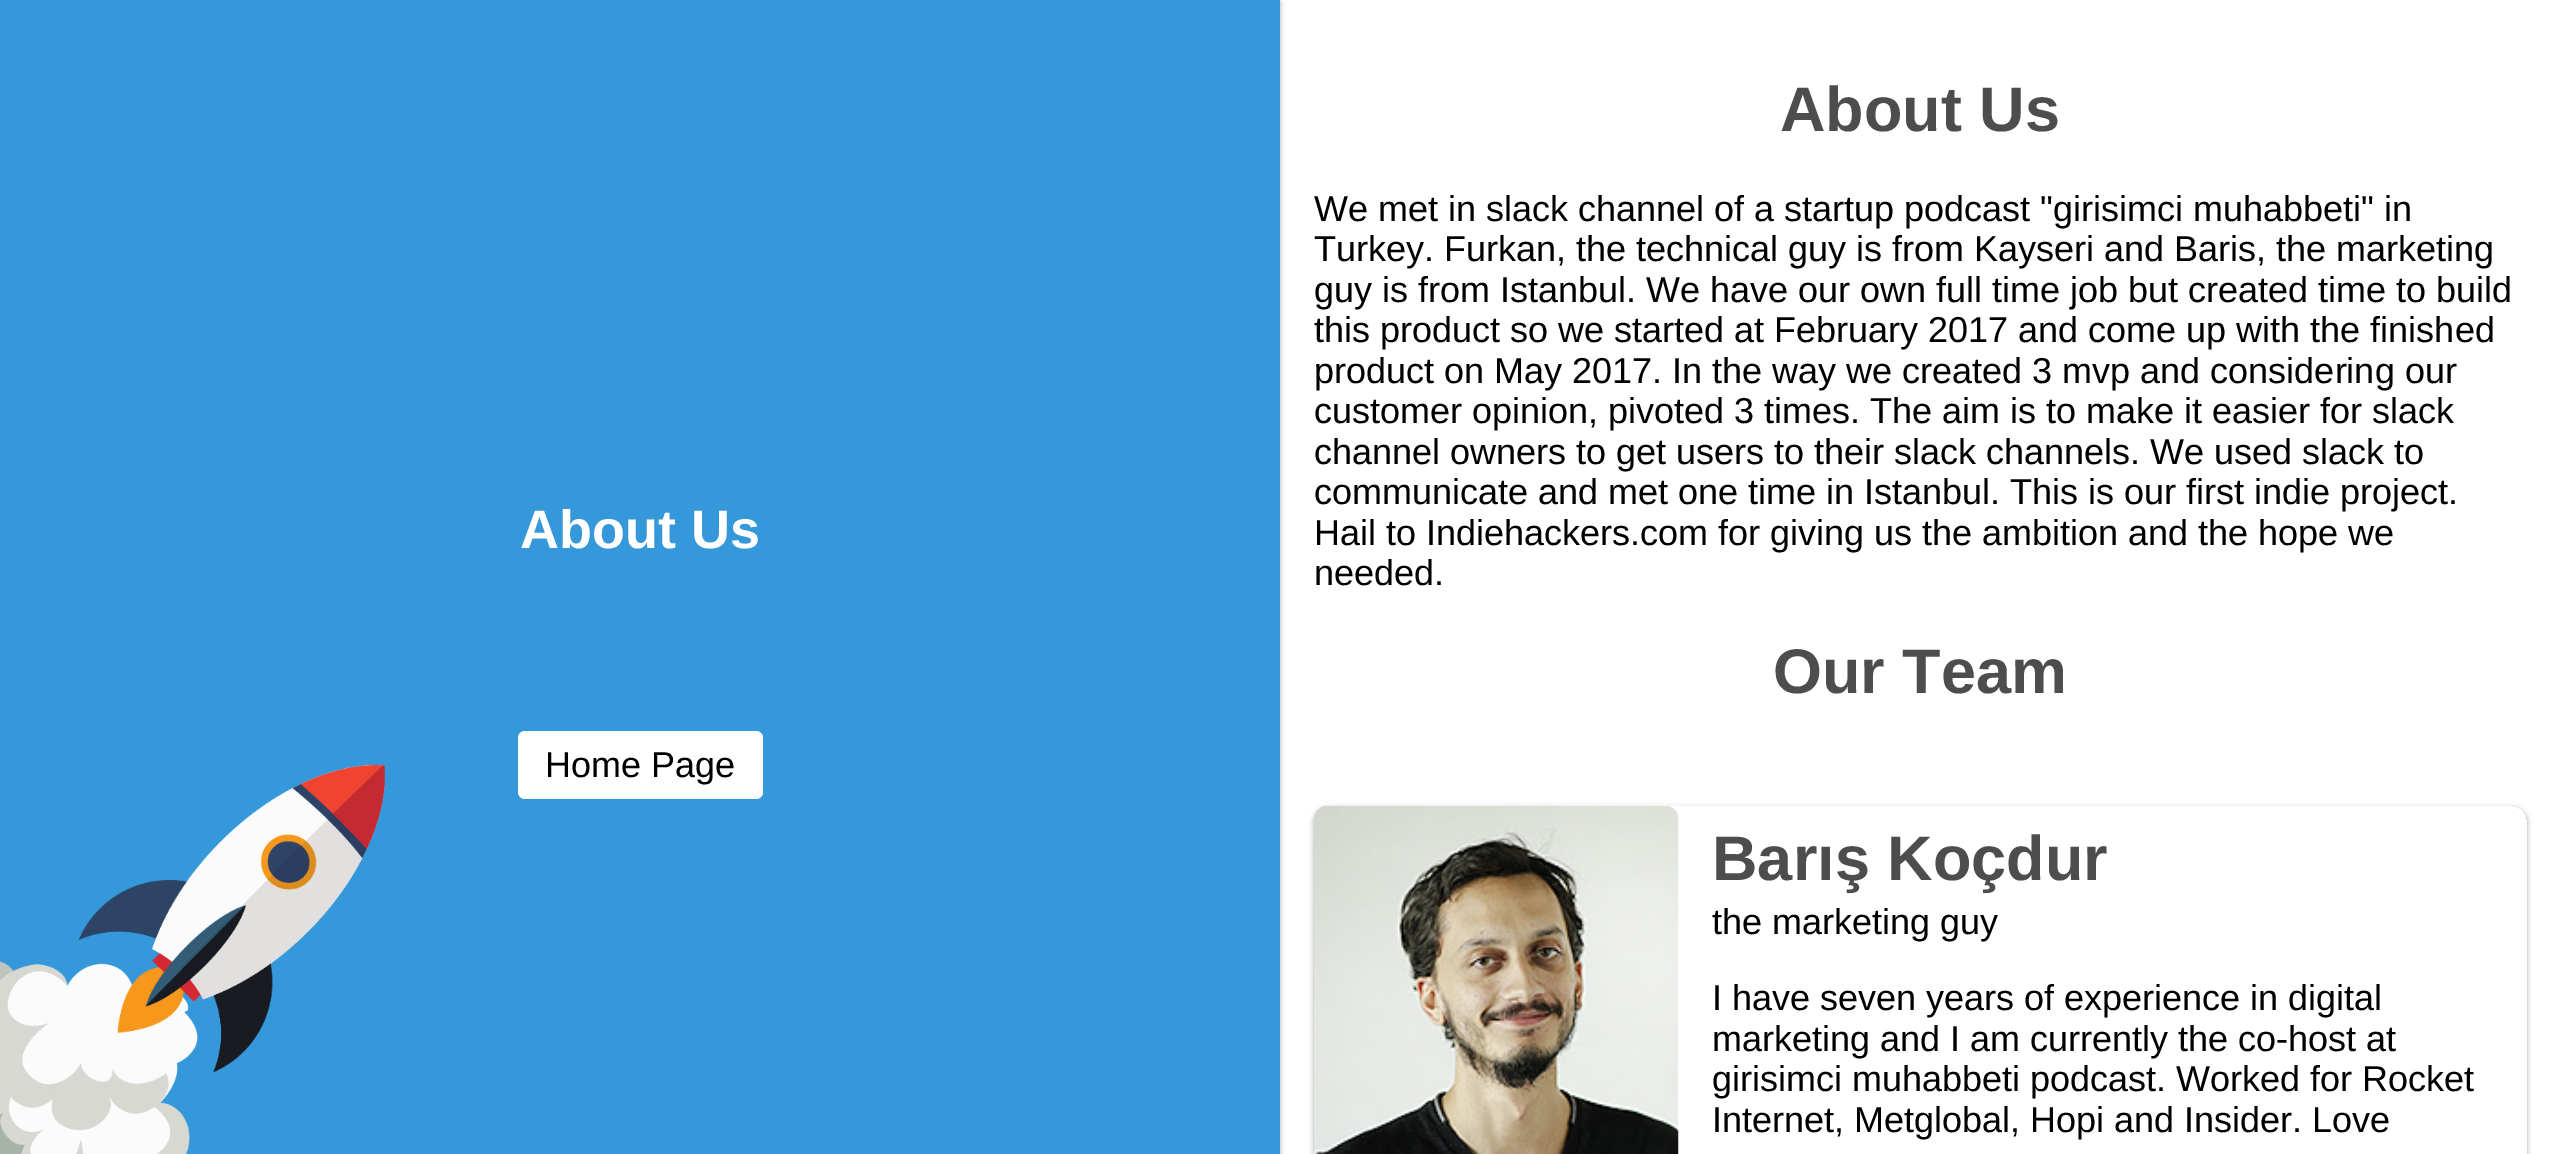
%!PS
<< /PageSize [2560 1154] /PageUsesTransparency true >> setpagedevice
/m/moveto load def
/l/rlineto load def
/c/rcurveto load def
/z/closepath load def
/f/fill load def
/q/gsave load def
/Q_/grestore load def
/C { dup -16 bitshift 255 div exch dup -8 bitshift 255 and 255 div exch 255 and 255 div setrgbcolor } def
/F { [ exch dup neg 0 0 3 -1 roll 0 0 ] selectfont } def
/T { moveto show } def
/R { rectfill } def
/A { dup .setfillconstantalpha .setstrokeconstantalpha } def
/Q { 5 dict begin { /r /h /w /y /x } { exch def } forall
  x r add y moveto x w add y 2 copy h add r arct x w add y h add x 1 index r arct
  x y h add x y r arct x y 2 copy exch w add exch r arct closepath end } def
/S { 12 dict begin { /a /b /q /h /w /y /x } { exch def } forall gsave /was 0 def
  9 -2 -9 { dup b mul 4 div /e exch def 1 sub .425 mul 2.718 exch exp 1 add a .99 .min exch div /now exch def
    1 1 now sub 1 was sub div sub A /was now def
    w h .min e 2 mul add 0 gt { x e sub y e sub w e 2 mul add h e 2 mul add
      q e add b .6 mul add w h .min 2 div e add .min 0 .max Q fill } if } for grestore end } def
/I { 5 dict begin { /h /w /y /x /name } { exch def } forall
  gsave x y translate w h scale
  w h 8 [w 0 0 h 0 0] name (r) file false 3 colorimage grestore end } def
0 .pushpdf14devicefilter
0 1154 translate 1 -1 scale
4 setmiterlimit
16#FFFFFF C
0 0 2560 1154 R
16#000000 C
0 2 1280 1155 0 2 .24 S
0 2 1280 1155 0 3.5 .12 S
16#3498DB C
0 0 1280 1154 R
(1.rgb) 0 765 385 389 I
/LiberationSans-Bold 54 F
16#FFFFFF C
(About Us) 520 548 T
518 731 245 68 7 Q f
/LiberationSans-Regular 36 F
16#000000 C
(Home Page) 545 777 T
/LiberationSans-Bold 63 F
16#4D4D4D C
(About Us) 1780 131 T
/LiberationSans-Regular 36 F
16#000000 C
(We met in slack channel of a startup podcast "girisimci muhabbeti" in) 1314 221 T
(Turkey. Furkan, the technical guy is from Kayseri and Baris, the marketing) 1314 261 T
(guy is from Istanbul. We have our own full time job but created time to build) 1314 302 T
(this product so we started at February 2017 and come up with the finished) 1314 342 T
(product on May 2017. In the way we created 3 mvp and considering our) 1314 383 T
(customer opinion, pivoted 3 times. The aim is to make it easier for slack) 1314 423 T
(channel owners to get users to their slack channels. We used slack to) 1314 464 T
(communicate and met one time in Istanbul. This is our first indie project.) 1314 504 T
(Hail to Indiehackers.com for giving us the ambition and the hope we) 1314 545 T
(needed.) 1314 585 T
/LiberationSans-Bold 63 F
16#4D4D4D C
(Our Team) 1773 693 T
q
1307 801 m 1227 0 l 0 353 l -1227 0 l z 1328 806 m 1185 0 l 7.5 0 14 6.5 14 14 c 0 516 l 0 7.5 -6.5 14 -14 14 c -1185 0 l -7.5 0 -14 -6.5 -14 -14 c 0 -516 l 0 -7.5 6.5 -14 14 -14 c z eoclip newpath
16#000000 C
1314 808 1213 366 14 2 .24 S
Q_
q
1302 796 m 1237 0 l 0 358 l -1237 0 l z 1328 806 m 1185 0 l 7.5 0 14 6.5 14 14 c 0 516 l 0 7.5 -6.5 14 -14 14 c -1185 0 l -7.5 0 -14 -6.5 -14 -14 c 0 -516 l 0 -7.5 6.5 -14 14 -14 c z eoclip newpath
16#000000 C
1314 808 1213 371 14 3.5 .12 S
Q_
(2.rgb) 1314 805 365 349 I
(Barış Koçdur) 1712 880 T
/LiberationSans-Regular 36 F
16#000000 C
(the marketing guy) 1712 934 T
(I have seven years of experience in digital) 1712 1010 T
(marketing and I am currently the co-host at) 1712 1051 T
(girisimci muhabbeti podcast. Worked for Rocket) 1712 1091 T
(Internet, Metglobal, Hopi and Insider. Love) 1712 1132 T
.poppdf14devicefilter showpage
